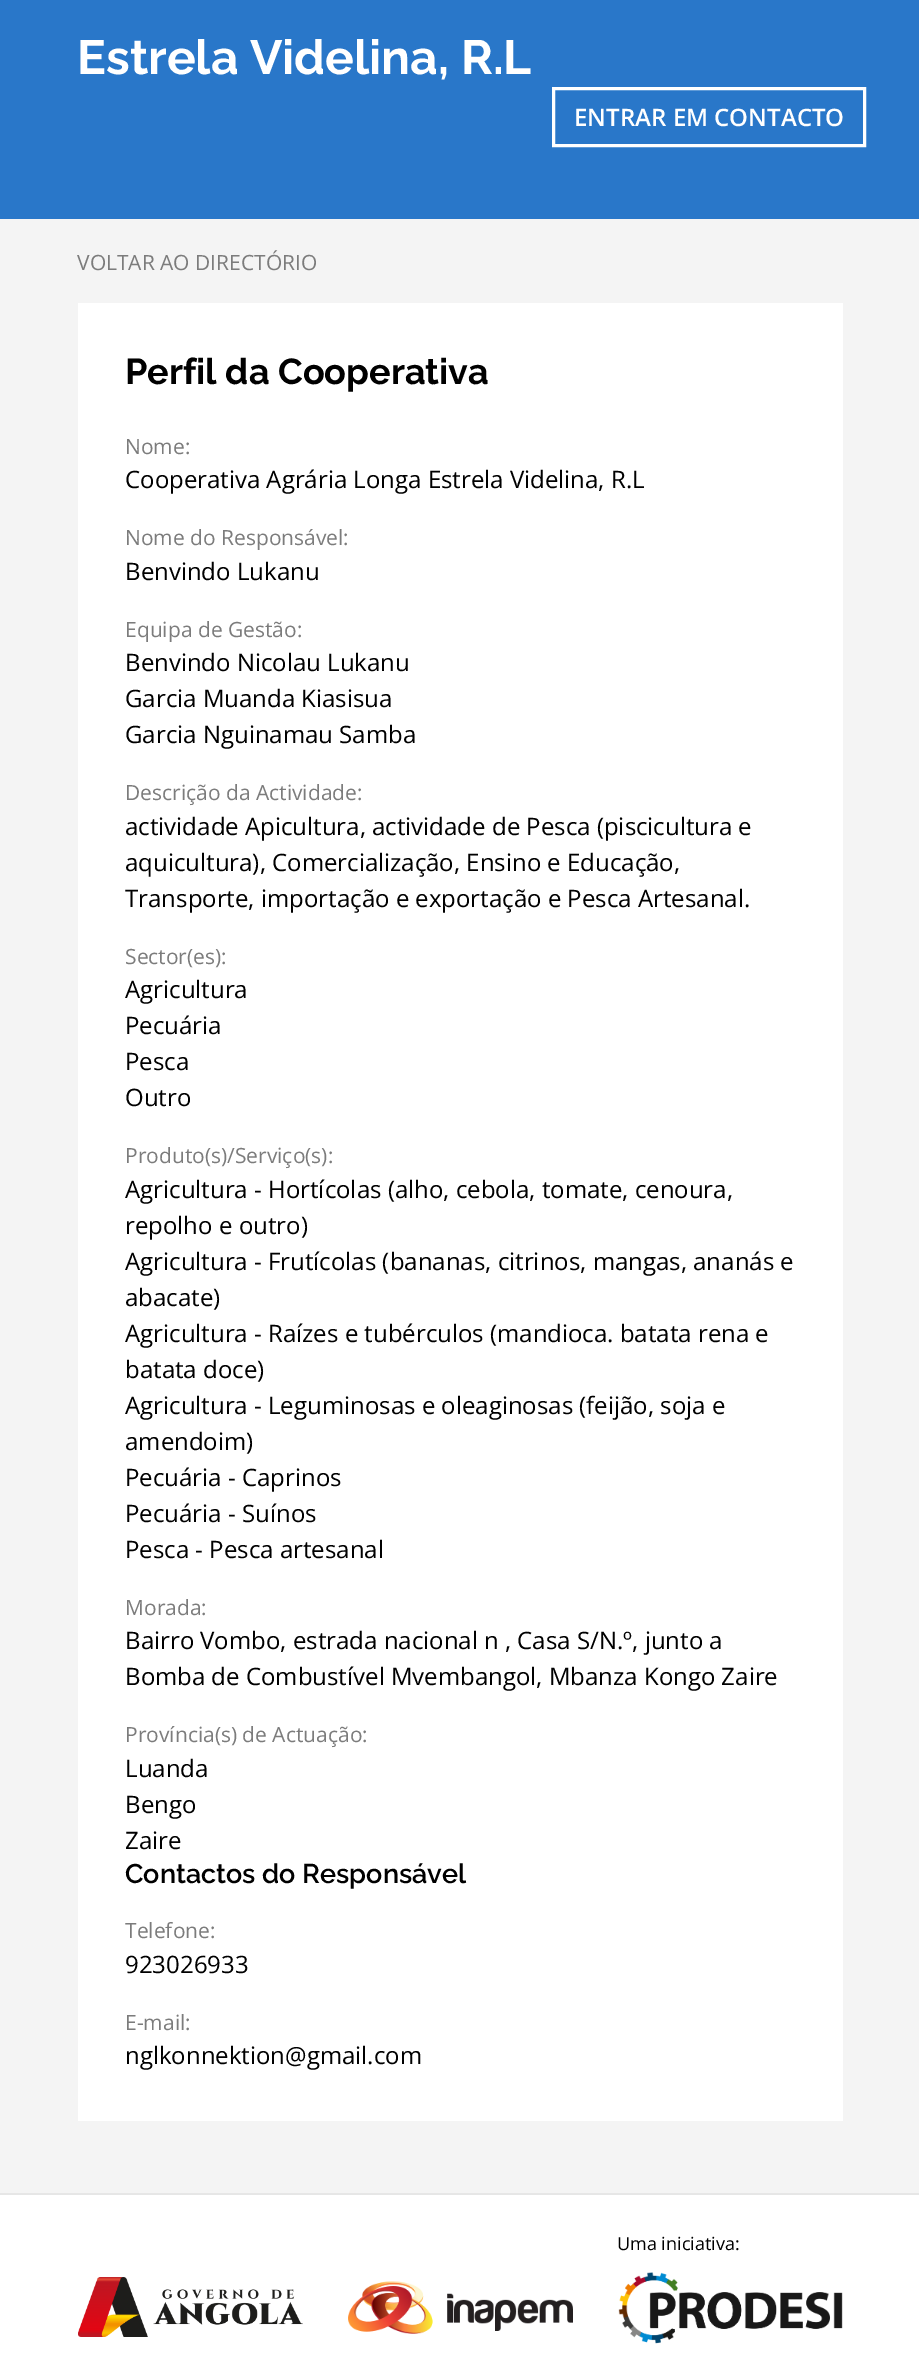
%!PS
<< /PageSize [919 2357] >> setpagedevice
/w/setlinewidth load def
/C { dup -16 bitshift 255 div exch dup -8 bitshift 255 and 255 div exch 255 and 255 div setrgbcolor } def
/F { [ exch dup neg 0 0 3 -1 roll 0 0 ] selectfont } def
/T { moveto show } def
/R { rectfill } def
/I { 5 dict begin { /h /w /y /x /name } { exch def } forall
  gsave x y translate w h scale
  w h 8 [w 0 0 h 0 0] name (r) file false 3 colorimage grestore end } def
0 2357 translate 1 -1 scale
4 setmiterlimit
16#FFFFFF C
0 0 919 2357 R
16#2977C9 C
0 0 919 219 R
/Raleway-Bold 48 F
16#FFFFFF C
(Estrela Videlina, R.L) 77 74 T
3 w
553.5 88.5 311 57 rectstroke
/OpenSans-SemiBold 24 F
(ENTRAR EM CONTACTO) 574 126 T
16#F4F4F4 C
0 219 919 1974 R
/OpenSans-Regular 21 F
16#7C7C7C C
(VOLTAR AO DIRECTÓRIO) 77 270 T
16#FFFFFF C
78 303 765 1818 R
/Raleway-Bold 36 F
16#000000 C
(Perfil da Cooperativa) 125 384 T
/OpenSans-Regular 21 F
16#7C7C7C C
(Nome:) 125 454 T
/OpenSans-Regular 24 F
16#000000 C
(Cooperativa Agrária Longa Estrela Videlina, R.L) 125 488 T
/OpenSans-Regular 21 F
16#7C7C7C C
(Nome do Responsável:) 125 545 T
/OpenSans-Regular 24 F
16#000000 C
(Benvindo Lukanu) 125 580 T
/OpenSans-Regular 21 F
16#7C7C7C C
(Equipa de Gestão:) 125 637 T
/OpenSans-Regular 24 F
16#000000 C
(Benvindo Nicolau Lukanu) 125 671 T
(Garcia Muanda Kiasisua) 125 707 T
(Garcia Nguinamau Samba) 125 743 T
/OpenSans-Regular 21 F
16#7C7C7C C
(Descrição da Actividade:) 125 800 T
/OpenSans-Regular 24 F
16#000000 C
(actividade Apicultura, actividade de Pesca \(piscicultura e) 125 835 T
(aquicultura\), Comercialização, Ensino e Educação,) 125 871 T
(Transporte, importação e exportação e Pesca Artesanal.) 125 907 T
/OpenSans-Regular 21 F
16#7C7C7C C
(Sector\(es\):) 125 964 T
/OpenSans-Regular 24 F
16#000000 C
(Agricultura) 125 998 T
(Pecuária) 125 1034 T
(Pesca) 125 1070 T
(Outro) 125 1106 T
/OpenSans-Regular 21 F
16#7C7C7C C
(Produto\(s\)/Serviço\(s\):) 125 1163 T
/OpenSans-Regular 24 F
16#000000 C
(Agricultura - Hortícolas \(alho, cebola, tomate, cenoura,) 125 1198 T
(repolho e outro\)) 125 1234 T
(Agricultura - Frutícolas \(bananas, citrinos, mangas, ananás e) 125 1270 T
(abacate\)) 125 1306 T
(Agricultura - Raízes e tubérculos \(mandioca. batata rena e) 125 1342 T
(batata doce\)) 125 1378 T
(Agricultura - Leguminosas e oleaginosas \(feijão, soja e) 125 1414 T
(amendoim\)) 125 1450 T
(Pecuária - Caprinos) 125 1486 T
(Pecuária - Suínos) 125 1522 T
(Pesca - Pesca artesanal) 125 1558 T
/OpenSans-Regular 21 F
16#7C7C7C C
(Morada:) 125 1615 T
/OpenSans-Regular 24 F
16#000000 C
(Bairro Vombo, estrada nacional n , Casa S/N.º, junto a) 125 1649 T
(Bomba de Combustível Mvembangol, Mbanza Kongo Zaire) 125 1685 T
/OpenSans-Regular 21 F
16#7C7C7C C
(Província\(s\) de Actuação:) 125 1742 T
/OpenSans-Regular 24 F
16#000000 C
(Luanda) 125 1777 T
(Bengo) 125 1813 T
(Zaire) 125 1849 T
/Raleway-SemiBold 27 F
(Contactos do Responsável) 125 1883 T
/OpenSans-Regular 21 F
16#7C7C7C C
(Telefone:) 125 1938 T
/OpenSans-Regular 24 F
16#000000 C
(923026933) 125 1973 T
/OpenSans-Regular 21 F
16#7C7C7C C
(E-mail:) 125 2030 T
/OpenSans-Regular 24 F
16#000000 C
(nglkonnektion@gmail.com) 125 2064 T
16#E6E6E6 C
0 2193 919 2 R
/OpenSans-Regular 18 F
16#000000 C
(Uma iniciativa:) 617 2250 T
(1.rgb) 618 2272 225 72 I
(2.rgb) 78 2277 225 60 I
(3.rgb) 348 2281 225 53 I
showpage
